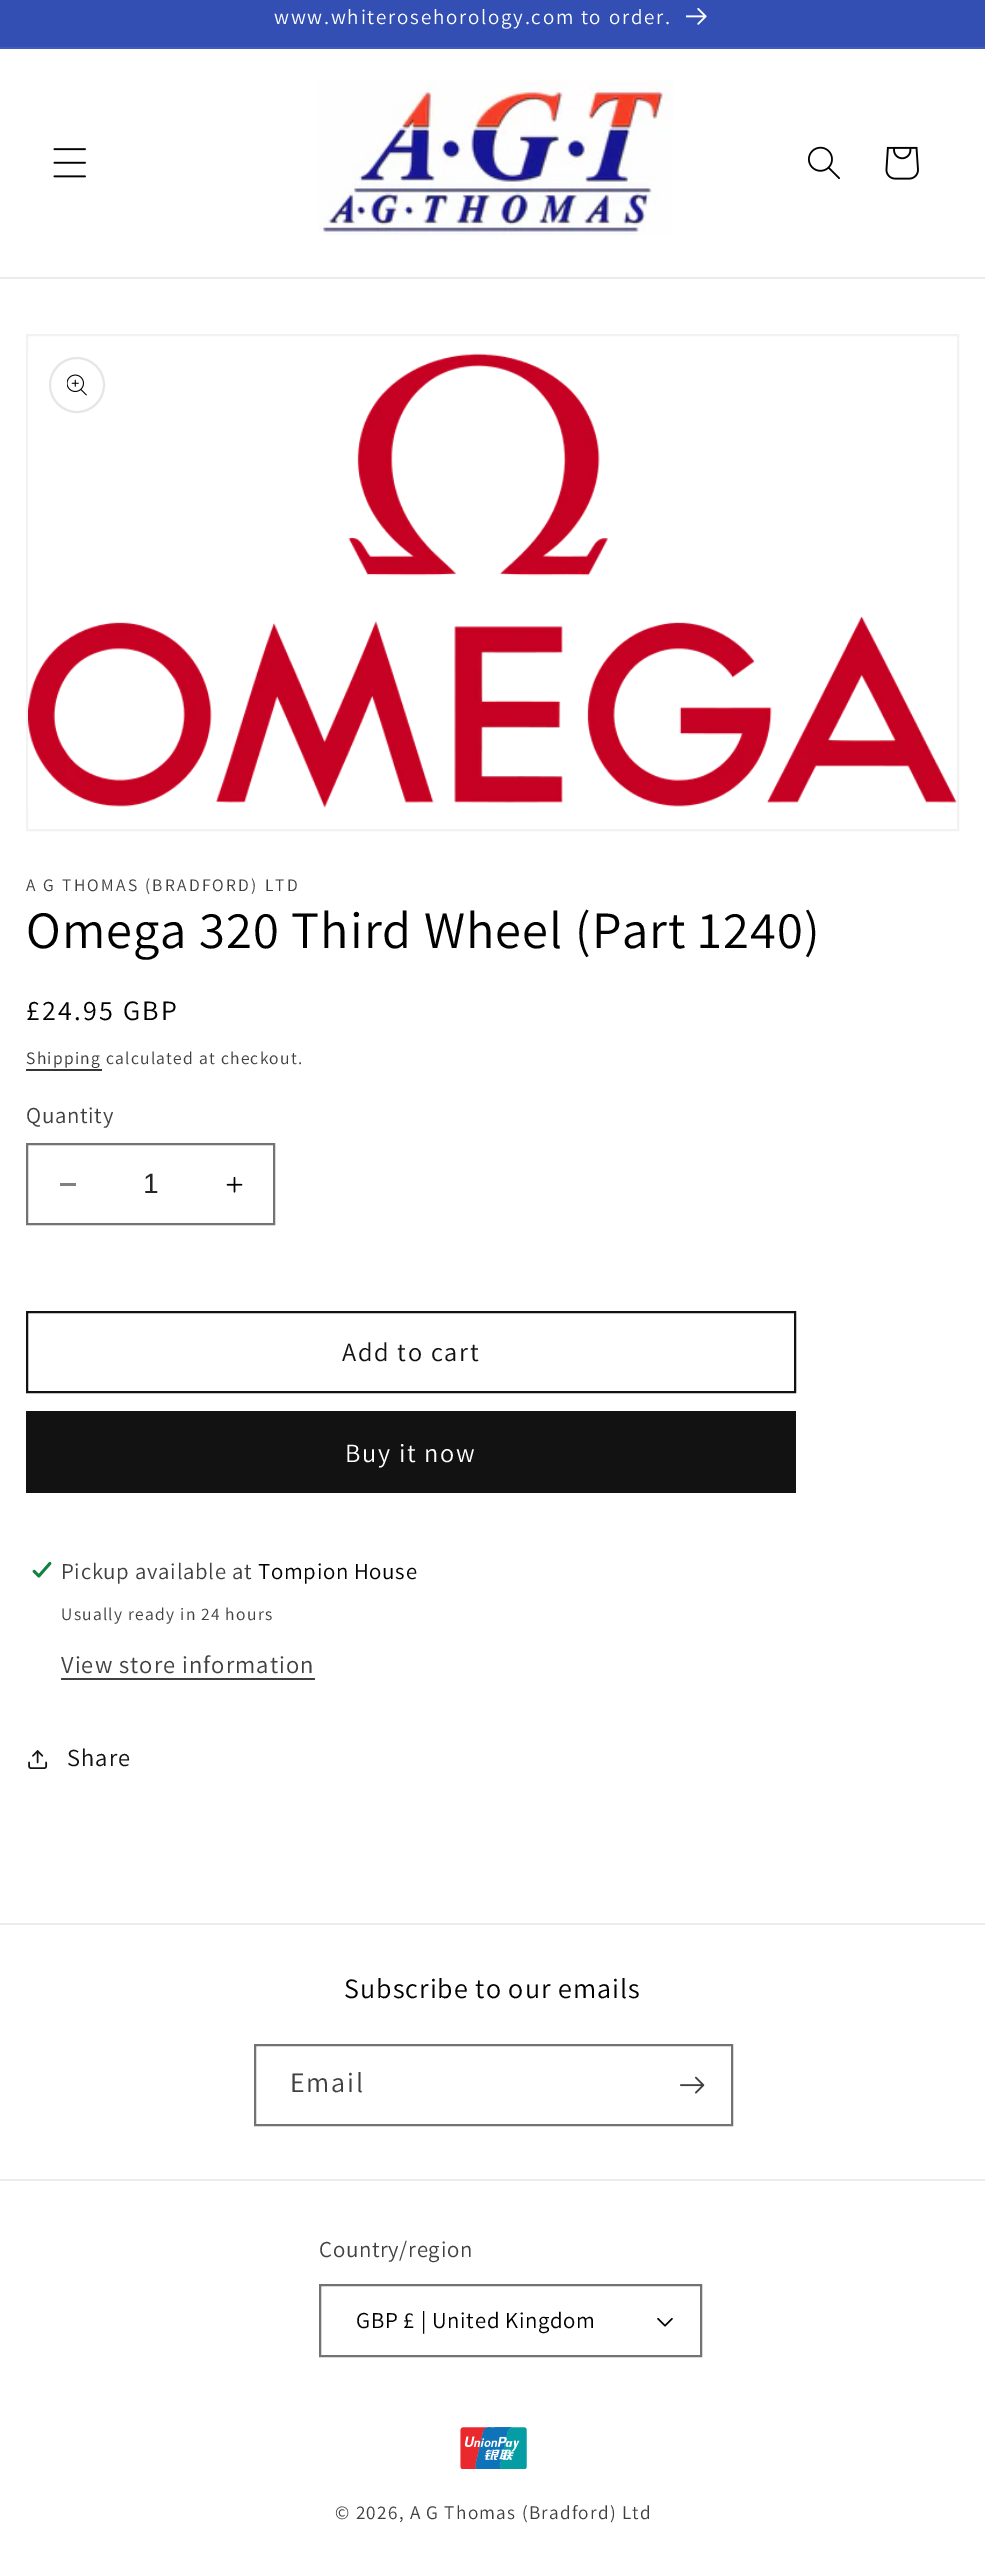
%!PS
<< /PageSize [985 2553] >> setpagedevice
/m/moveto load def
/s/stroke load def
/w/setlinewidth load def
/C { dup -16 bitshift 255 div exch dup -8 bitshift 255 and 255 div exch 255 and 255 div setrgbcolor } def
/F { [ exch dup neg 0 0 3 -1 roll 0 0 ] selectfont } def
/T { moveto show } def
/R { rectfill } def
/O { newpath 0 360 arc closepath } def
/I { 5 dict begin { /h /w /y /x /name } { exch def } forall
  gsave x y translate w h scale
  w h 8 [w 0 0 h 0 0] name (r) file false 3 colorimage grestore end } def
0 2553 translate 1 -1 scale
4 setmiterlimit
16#FFFFFF C
0 0 985 2553 R
16#334FB4 C
0 0 985 47 R
16#435DBA C
0 47 985 2 R
/Assistant-Regular 21 F
16#FFFFFF C
274 24 m 1.75 0 (www.whiterosehorology.com to order.) ashow
(1.rgb) 686 8 21 17 I
16#EBEBEB C
0 277 985 2 R
(2.rgb) 53 148 33 30 I
(3.rgb) 317 80 356 155 I
(4.rgb) 808 146 32 34 I
(5.rgb) 885 146 34 34 I
16#F2F2F2 C
2 w
27 335 931 495 rectstroke
(6.rgb) 28 353 929 455 I
16#E6E6E6 C
77 385 27 O s
(7.rgb) 67 374 20 22 I
/Assistant-Regular 17.5 F
16#404040 C
26 891 m 2.25 0 (A G THOMAS \(BRADFORD\) LTD) ashow
/Assistant-Regular 52.5 F
16#000000 C
26 948 m 1.05 0 (Omega 320 Third Wheel \(Part 1240\)) ashow
/Assistant-Regular 28 F
26 1020 m 2.25 0 (£24.95 GBP) ashow
/Assistant-Regular 17.5 F
16#363636 C
26 1064 m 1.25 0 (Shipping) ashow
26 1069 76 2 R
16#404040 C
106 1064 m 1.25 0 (calculated at checkout.) ashow
/Assistant-Regular 22.75 F
26 1123 m .7 0 (Quantity) ashow
16#808080 C
60 1183 16 3 R
(8.rgb) 226 1176 17 17 I
16#737373 C
27 1144 247 80 rectstroke
/LiberationSans-Regular 28 F
16#262626 C
(1) 143 1193 T
16#121212 C
27 1312 768 80 rectstroke
/Assistant-Regular 26.25 F
342 1361 m 1.75 0 (Add to cart) ashow
26 1411 770 82 R
16#FFFFFF C
345 1462 m 1.75 0 (Buy it now) ashow
(9.rgb) 32 1561 20 17 I
/Assistant-Regular 22.75 F
16#404040 C
61 1579 m .7 0 (Pickup available at) ashow
16#000000 C
258 1579 m .7 0 (Tompion House) ashow
/Assistant-Regular 17.5 F
16#404040 C
61 1620 m 1.25 0 (Usually ready in 24 hours) ashow
/Assistant-Regular 24.5 F
61 1673 m 1.05 0 (View store information) ashow
61 1678 254 2 R
(10.rgb) 28 1750 20 19 I
16#121212 C
67 1766 m 1.05 0 (Share) ashow
16#EBEBEB C
0 1923 985 2 R
/Assistant-Regular 28 F
16#000000 C
344 1998 m 1.05 0 (Subscribe to our emails) ashow
16#737373 C
255 2045 477 80 rectstroke
16#404040 C
290 2092 m 1.75 0 (Email) ashow
(11.rgb) 680 2076 25 18 I
16#EBEBEB C
0 2179 985 2 R
/Assistant-Regular 22.75 F
16#404040 C
319 2257 m .7 0 (Country/region) ashow
(12.rgb) 657 2318 16 9 I
16#737373 C
320 2285 381 71 rectstroke
16#000000 C
356 2328 m .7 0 (GBP £ | United Kingdom) ashow
(13.rgb) 460 2427 67 42 I
/Assistant-Regular 19.25 F
16#404040 C
335 2519 m 1.25 0 (© 2026, A G Thomas \(Bradford\) Ltd) ashow
showpage
